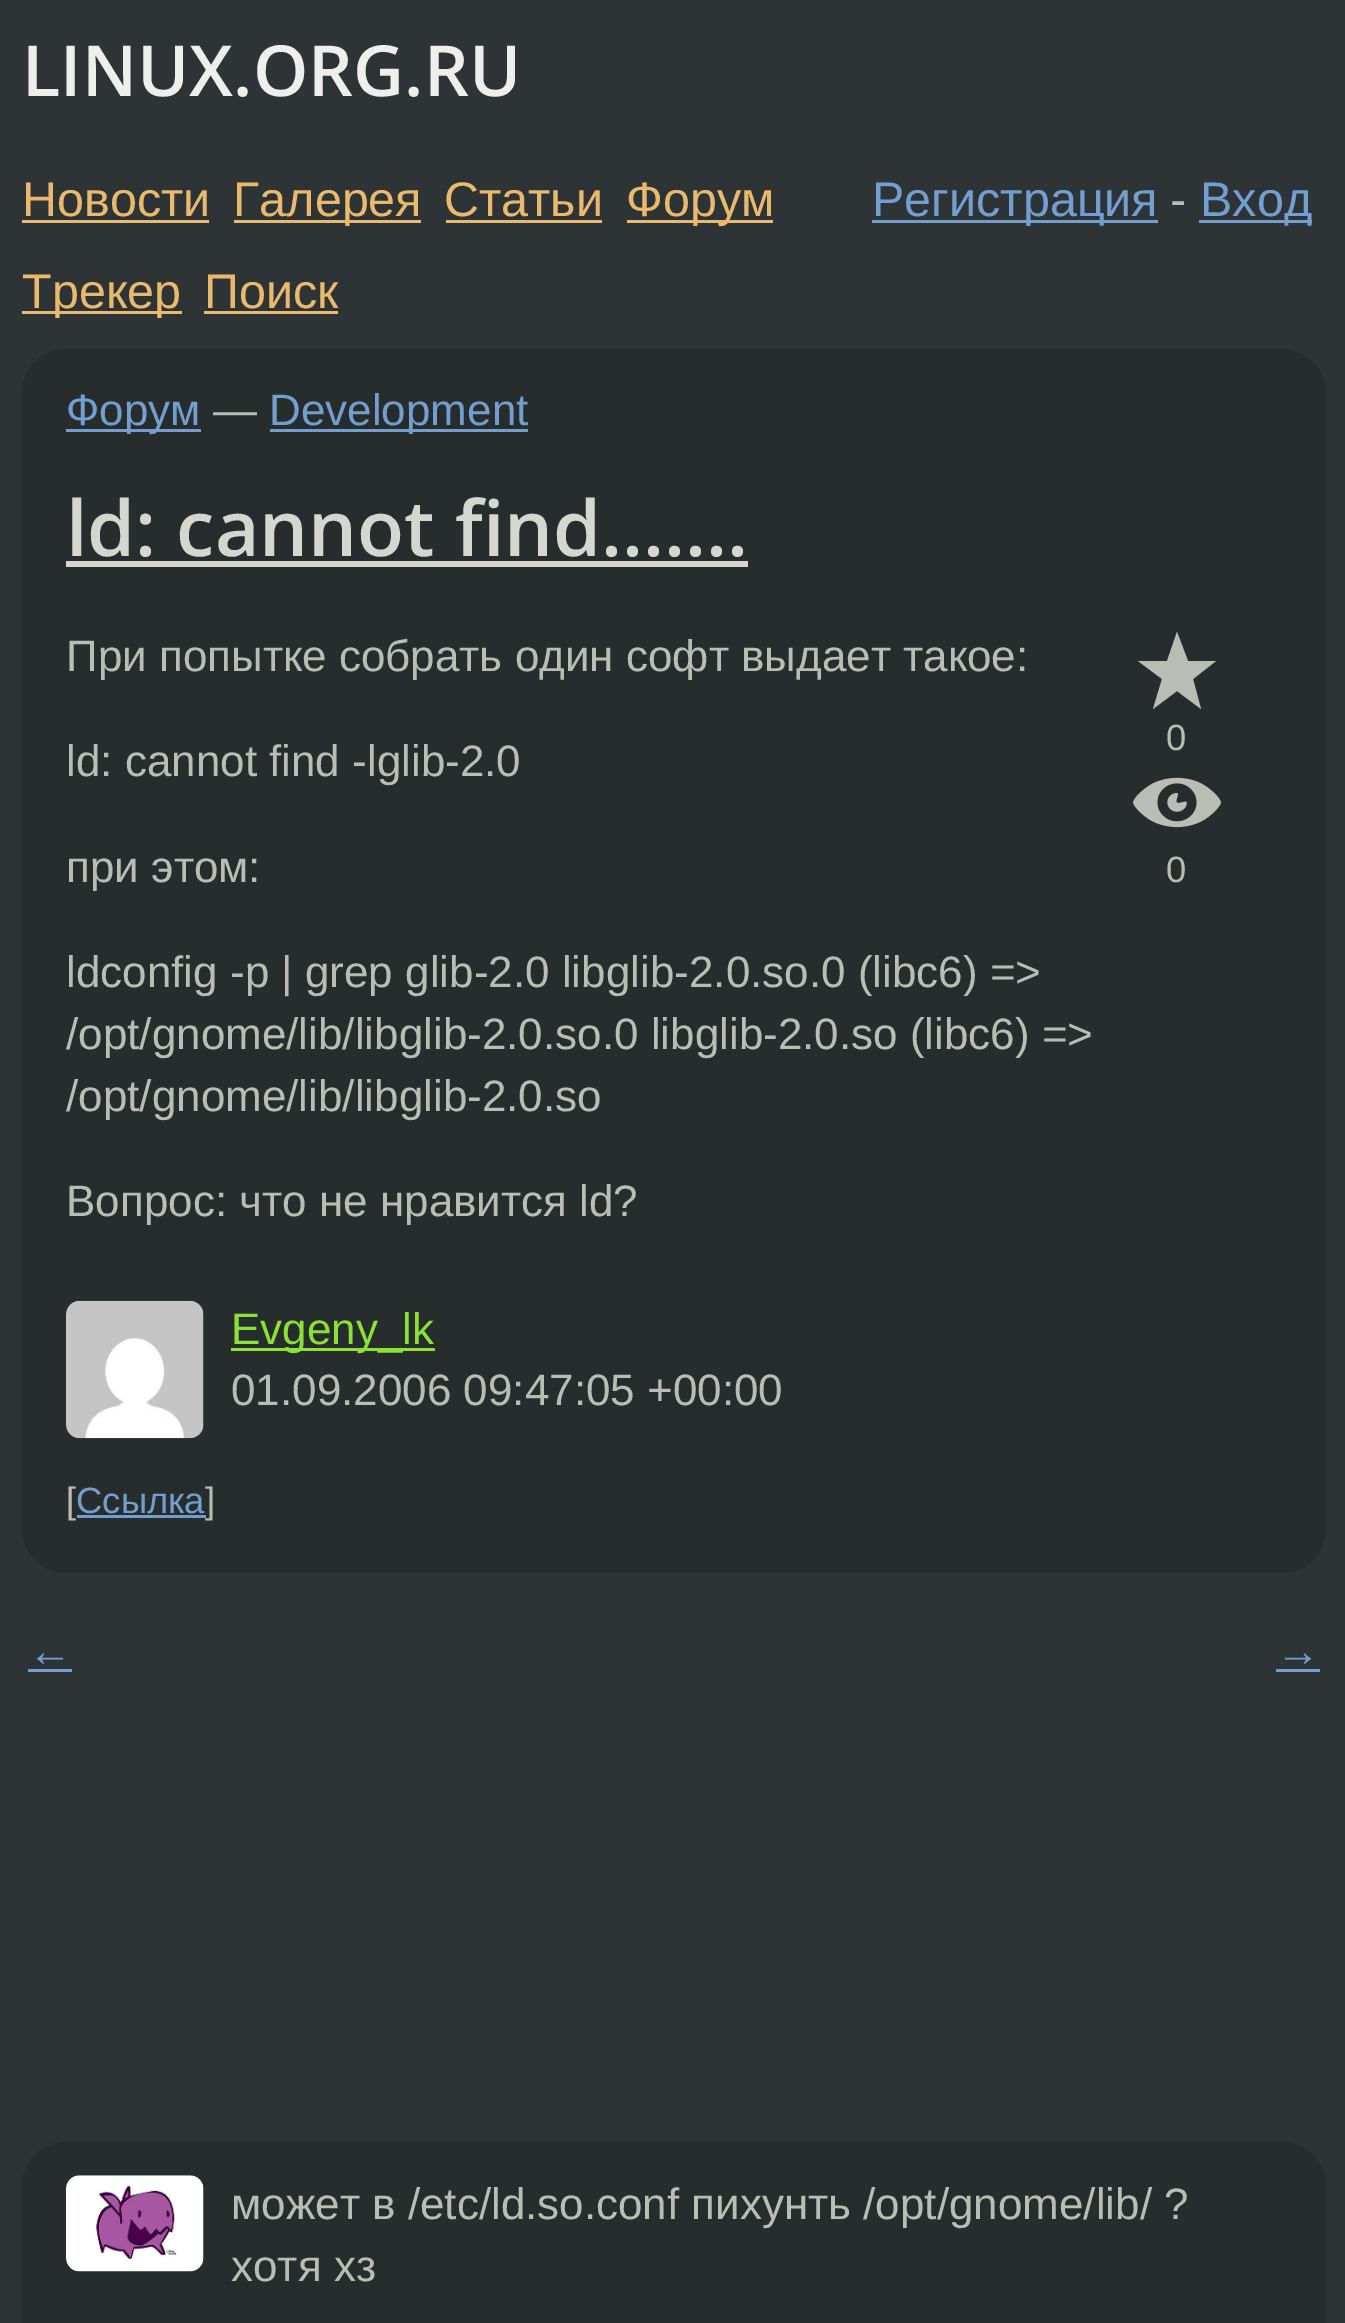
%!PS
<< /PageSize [1345 2323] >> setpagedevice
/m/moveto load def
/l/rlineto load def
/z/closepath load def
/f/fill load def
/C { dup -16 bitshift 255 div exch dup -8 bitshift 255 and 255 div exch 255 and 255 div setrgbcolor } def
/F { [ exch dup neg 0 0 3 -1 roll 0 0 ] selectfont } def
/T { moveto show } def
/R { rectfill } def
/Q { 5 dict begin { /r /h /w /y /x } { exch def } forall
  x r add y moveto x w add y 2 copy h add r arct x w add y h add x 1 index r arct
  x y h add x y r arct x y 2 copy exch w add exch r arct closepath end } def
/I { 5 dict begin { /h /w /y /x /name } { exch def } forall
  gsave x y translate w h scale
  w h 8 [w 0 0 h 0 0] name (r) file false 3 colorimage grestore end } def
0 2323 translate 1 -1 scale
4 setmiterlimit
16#2E3436 C
0 0 1345 2323 R
/OpenSans-SemiBold 70.5 F
16#EEEEEC C
(LINUX.ORG.RU) 22 96 T
/LiberationSans-Regular 48.5 F
16#E9B96E C
(Новости) 22 216 T
22 220 187 3 R
234 220 187 3 R
(Галерея) 233 216 T
(Статьи) 444 216 T
446 220 156 3 R
627 220 146 3 R
(Форум) 626 216 T
22 311 160 3 R
(Трекер) 22 308 T
(Поиск) 204 308 T
204 311 134 3 R
16#729FCF C
872 220 286 3 R
(Регистрация) 872 216 T
16#BABDB6 C
(-) 1170 216 T
16#729FCF C
1199 220 113 3 R
(Вход) 1200 216 T
16#272C2D C
22 349 1304 1224 44 Q f
16#729FCF C
66 429 135 3 R
/LiberationSans-Regular 44 F
(Форум) 66 425 T
16#BABDB6 C
(—) 213 425 T
16#729FCF C
270 429 258 3 R
(Development) 269 425 T
/OpenSans-SemiBold 77 F
16#D3D7CF C
(ld: cannot find.......) 66 556 T
66 561 682 6 R
/LiberationSans-Regular 44 F
16#BABDB6 C
(При попытке собрать один софт выдает такое:) 66 671 T
(ld: cannot find -lglib-2.0) 66 776 T
(при этом:) 66 882 T
(ldconfig -p | grep glib-2.0 libglib-2.0.so.0 \(libc6\) =>) 66 987 T
(/opt/gnome/lib/libglib-2.0.so.0 libglib-2.0.so \(libc6\) =>) 66 1049 T
(/opt/gnome/lib/libglib-2.0.so) 66 1111 T
(Вопрос: что не нравится ld?) 66 1216 T
1177 632 m 11 29 l 28 0 l -23 18 l 8 30 l -24 -18 l -24 18 l 9 -30 l -24 -18 l 29 0 l z f
/LiberationSans-Regular 36.5 F
(0) 1166 750 T
(1.rgb) 1133 777 88 51 I
(0) 1166 882 T
(2.rgb) 66 1300 138 139 I
16#8AE234 C
231 1348 204 3 R
/LiberationSans-Regular 44 F
(Evgeny_lk) 231 1344 T
16#BABDB6 C
(01.09.2006 09:47:05 +00:00) 231 1405 T
/LiberationSans-Regular 36.5 F
([) 66 1513 T
16#729FCF C
(Ссылка) 76 1513 T
77 1515 129 3 R
16#BABDB6 C
(]) 205 1513 T
/LiberationSans-Regular 44 F
16#729FCF C
(←) 28 1666 T
28 1669 44 3 R
(→) 1276 1666 T
1276 1669 44 3 R
16#272C2D C
22 2142 1304 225 44 Q f
(3.rgb) 66 2175 138 97 I
16#BABDB6 C
(может в /etc/ld.so.conf пихунть /opt/gnome/lib/ ?) 231 2219 T
(хотя хз) 231 2281 T
showpage
